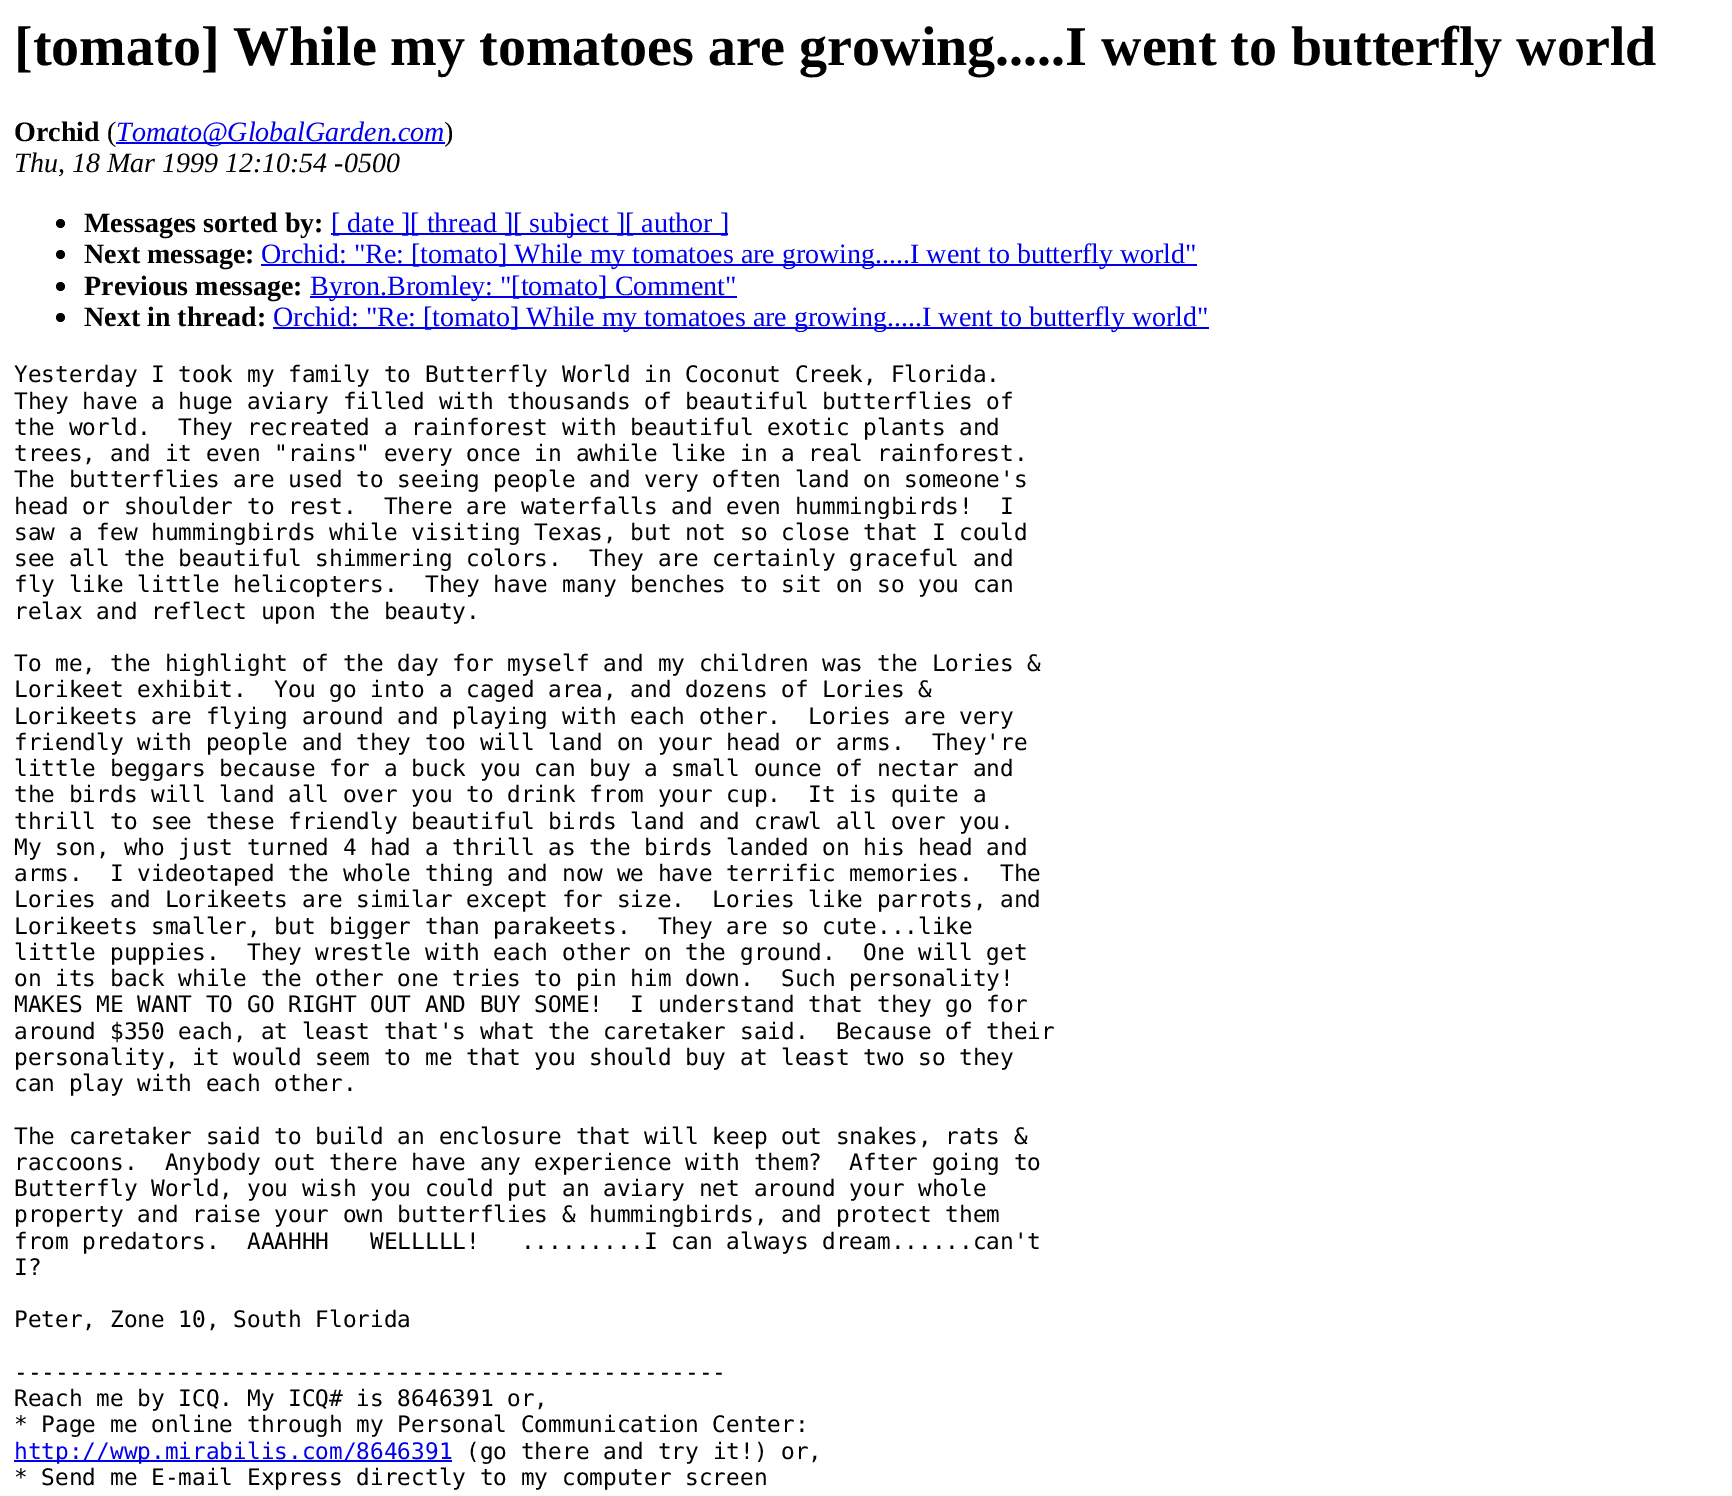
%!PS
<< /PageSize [1732 1496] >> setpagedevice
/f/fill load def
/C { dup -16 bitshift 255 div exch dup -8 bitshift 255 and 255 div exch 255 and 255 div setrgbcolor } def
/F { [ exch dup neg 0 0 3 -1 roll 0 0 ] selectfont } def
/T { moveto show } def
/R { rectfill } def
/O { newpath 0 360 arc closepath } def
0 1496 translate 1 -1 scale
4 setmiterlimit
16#FFFFFF C
0 0 1732 1496 R
/LiberationSerif-Bold 56 F
16#000000 C
([tomato] While my tomatoes are growing.....I went to butterfly world) 14 65 T
/LiberationSerif-Bold 28 F
(Orchid) 14 141 T
/LiberationSerif-Regular 28 F
(\() 107 141 T
16#0000EE C
116 142 329 2 R
/LiberationSerif-Italic 28 F
(Tomato@GlobalGarden.com) 116 141 T
/LiberationSerif-Regular 28 F
16#000000 C
(\)) 444 141 T
/LiberationSerif-Italic 28 F
(Thu, 18 Mar 1999 12:10:54 -0500) 14 172 T
60.5 223.5 4.5 O f
/LiberationSerif-Bold 28 F
(Messages sorted by:) 84 232 T
16#0000EE C
331 233 397 2 R
/LiberationSerif-Regular 28 F
([ date ][ thread ][ subject ][ author ]) 331 232 T
16#000000 C
60.5 254.5 4.5 O f
/LiberationSerif-Bold 28 F
(Next message:) 84 263 T
16#0000EE C
261 264 936 2 R
/LiberationSerif-Regular 28 F
(Orchid: "Re: [tomato] While my tomatoes are growing.....I went to butterfly world") 261 263 T
16#000000 C
60.5 286.5 4.5 O f
/LiberationSerif-Bold 28 F
(Previous message:) 84 295 T
16#0000EE C
310 296 427 2 R
/LiberationSerif-Regular 28 F
(Byron.Bromley: "[tomato] Comment") 310 295 T
16#000000 C
60.5 317.5 4.5 O f
/LiberationSerif-Bold 28 F
(Next in thread:) 84 326 T
16#0000EE C
273 327 936 2 R
/LiberationSerif-Regular 28 F
(Orchid: "Re: [tomato] While my tomatoes are growing.....I went to butterfly world") 273 326 T
/DejaVuSansMono-Regular 22.75 F
16#000000 C
(Yesterday I took my family to Butterfly World in Coconut Creek, Florida.) 14 382 T
(They have a huge aviary filled with thousands of beautiful butterflies of) 14 409 T
(the world.  They recreated a rainforest with beautiful exotic plants and) 14 435 T
(trees, and it even "rains" every once in awhile like in a real rainforest.) 14 461 T
(The butterflies are used to seeing people and very often land on someone's) 14 487 T
(head or shoulder to rest.  There are waterfalls and even hummingbirds!  I) 14 514 T
(saw a few hummingbirds while visiting Texas, but not so close that I could) 14 540 T
(see all the beautiful shimmering colors.  They are certainly graceful and) 14 566 T
(fly like little helicopters.  They have many benches to sit on so you can) 14 592 T
(relax and reflect upon the beauty.) 14 619 T
(To me, the highlight of the day for myself and my children was the Lories &) 14 671 T
(Lorikeet exhibit.  You go into a caged area, and dozens of Lories &) 14 697 T
(Lorikeets are flying around and playing with each other.  Lories are very) 14 724 T
(friendly with people and they too will land on your head or arms.  They're) 14 750 T
(little beggars because for a buck you can buy a small ounce of nectar and) 14 776 T
(the birds will land all over you to drink from your cup.  It is quite a) 14 802 T
(thrill to see these friendly beautiful birds land and crawl all over you.) 14 829 T
(My son, who just turned 4 had a thrill as the birds landed on his head and) 14 855 T
(arms.  I videotaped the whole thing and now we have terrific memories.  The) 14 881 T
(Lories and Lorikeets are similar except for size.  Lories like parrots, and) 14 907 T
(Lorikeets smaller, but bigger than parakeets.  They are so cute...like) 14 934 T
(little puppies.  They wrestle with each other on the ground.  One will get) 14 960 T
(on its back while the other one tries to pin him down.  Such personality!) 14 986 T
(MAKES ME WANT TO GO RIGHT OUT AND BUY SOME!  I understand that they go for) 14 1012 T
(around $350 each, at least that's what the caretaker said.  Because of their) 14 1039 T
(personality, it would seem to me that you should buy at least two so they) 14 1065 T
(can play with each other.) 14 1091 T
(The caretaker said to build an enclosure that will keep out snakes, rats &) 14 1144 T
(raccoons.  Anybody out there have any experience with them?  After going to) 14 1170 T
(Butterfly World, you wish you could put an aviary net around your whole) 14 1196 T
(property and raise your own butterflies & hummingbirds, and protect them) 14 1222 T
(from predators.  AAAHHH   WELLLLL!   .........I can always dream......can't) 14 1249 T
(I?) 14 1275 T
(Peter, Zone 10, South Florida) 14 1327 T
(----------------------------------------------------) 14 1380 T
(Reach me by ICQ. My ICQ# is 8646391 or,) 14 1406 T
(* Page me online through my Personal Communication Center:) 14 1432 T
16#0000EE C
14 1460 438 2 R
(http://wwp.mirabilis.com/8646391) 14 1459 T
16#000000 C
(\(go there and try it!\) or,) 466 1459 T
(* Send me E-mail Express directly to my computer screen) 14 1485 T
showpage
